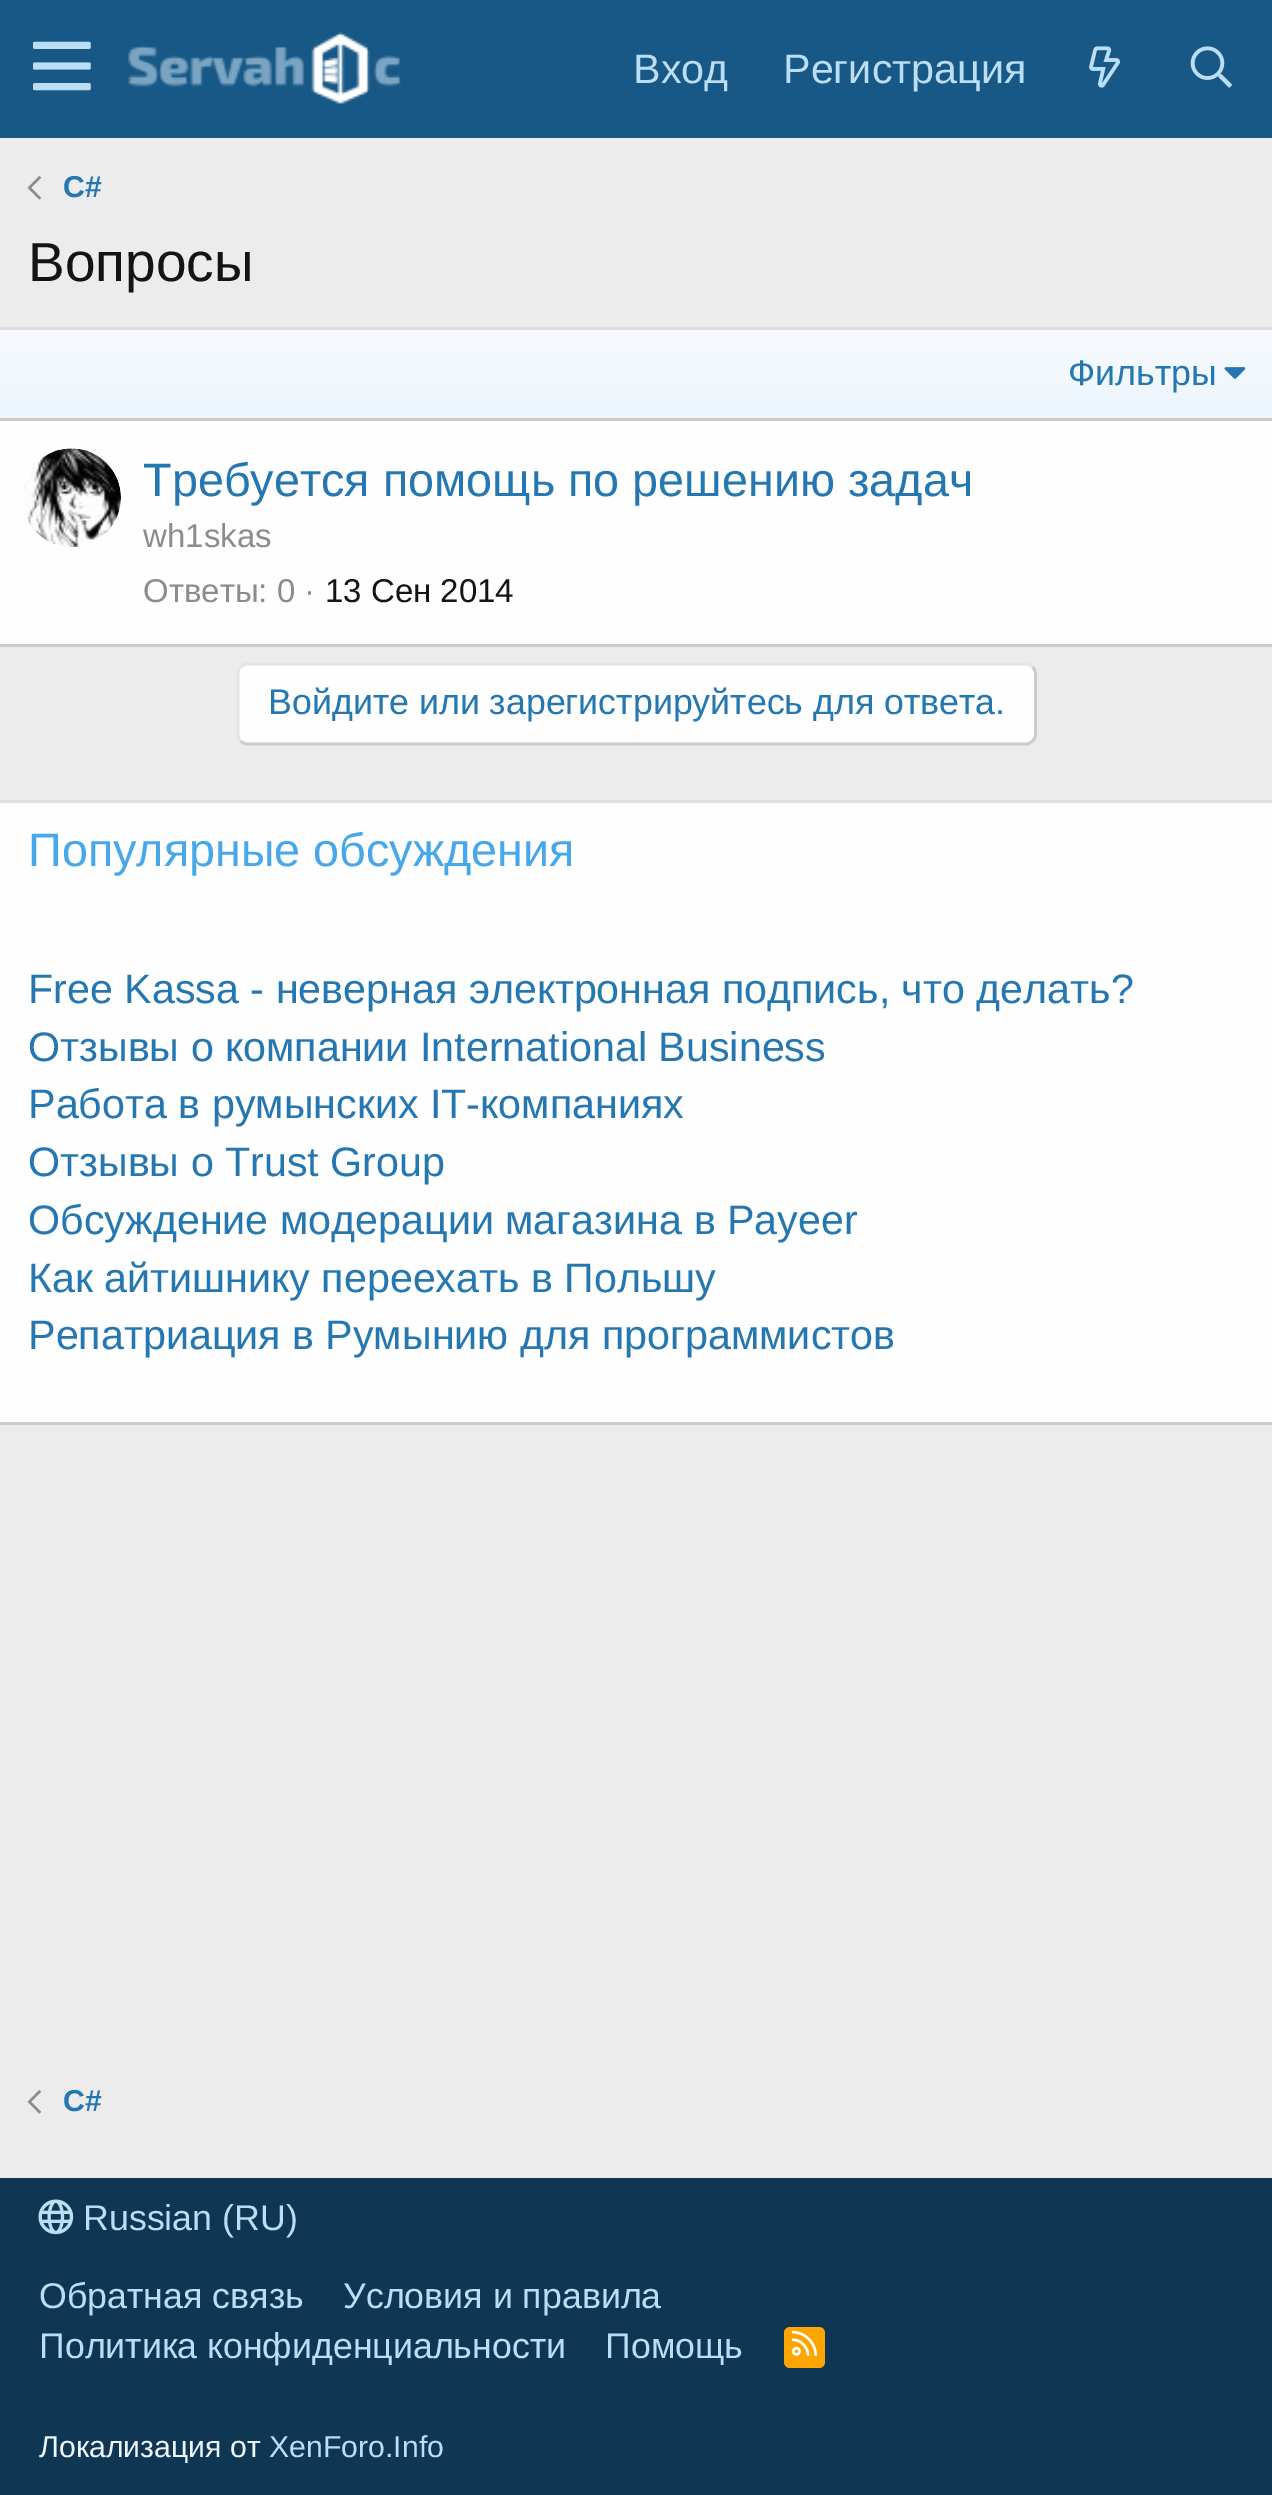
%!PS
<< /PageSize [1272 2495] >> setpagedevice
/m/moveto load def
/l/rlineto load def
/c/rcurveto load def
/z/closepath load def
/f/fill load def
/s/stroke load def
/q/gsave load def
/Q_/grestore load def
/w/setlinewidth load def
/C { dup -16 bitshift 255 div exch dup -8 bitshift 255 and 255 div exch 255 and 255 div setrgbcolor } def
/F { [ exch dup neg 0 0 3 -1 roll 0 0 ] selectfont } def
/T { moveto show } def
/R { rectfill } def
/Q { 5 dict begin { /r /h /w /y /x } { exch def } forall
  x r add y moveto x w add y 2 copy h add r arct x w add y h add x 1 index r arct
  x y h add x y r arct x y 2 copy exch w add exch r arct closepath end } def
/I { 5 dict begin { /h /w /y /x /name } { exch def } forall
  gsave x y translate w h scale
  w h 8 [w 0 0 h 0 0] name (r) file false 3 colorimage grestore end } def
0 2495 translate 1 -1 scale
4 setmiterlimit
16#ECECEC C
0 0 1272 2495 R
16#185886 C
0 0 1272 138 R
(1.rgb) 33 41 58 50 I
(2.rgb) 128 32 274 72 I
/LiberationSans-Regular 41.25 F
16#BCDEF5 C
(Вход) 633 83 T
(Регистрация) 783 83 T
(3.rgb) 1089 46 31 42 I
(4.rgb) 1190 46 42 42 I
(5.rgb) 27 176 14 24 I
/LiberationSans-Bold 30.25 F
16#2577B1 C
(C#) 63 197 T
/LiberationSans-Regular 55 F
16#141414 C
(Вопросы) 28 281 T
16#FEFEFE C
0 421 1272 223 R
16#DFDFDF C
0 327 1272 3 R
16#CBCBCB C
0 644 1272 3 R
q 0 330 m 1272 0 l 0 88 l -1272 0 l z clip newpath
<< /ShadingType 2 /ColorSpace /DeviceRGB /Coords [637 418 637 330] /Extend [true true] /Function << /FunctionType 2 /Domain [0 1] /C0 [.929 .965 .992] /C1 [.965 .98 .996] /N 1 >> >> shfill Q_
0 418 1272 3 R
/LiberationSans-Regular 35.75 F
16#2577B1 C
(Фильтры) 1068 385 T
(6.rgb) 1224 367 22 12 I
(7.rgb) 24 448 97 99 I
/LiberationSans-Regular 46.75 F
(Требуется помощь по решению задач) 143 496 T
/LiberationSans-Regular 33 F
16#8C8C8C C
(wh1skas) 143 547 T
(Ответы: 0) 143 602 T
(·) 304 602 T
16#141414 C
(13 Сен 2014) 325 602 T
16#FEFEFE C
237 663 800 82 11 Q f
16#CBCBCB C
2.8 w
1032.5 667 m 2 1.5 3 4 3 7 c 0 60 l 0 3 -1 5.5 -3 7 c -1.5 2 -4 3 -6.5 3 c -778.5 0 l -2.5 0 -5 -1 -7 -3 c s
16#E5E5E5 C
240.5 741 m -1.5 -1.5 -2.5 -4 -2.5 -7 c 0 -60 l 0 -3 1 -5.5 2.5 -7 c 2 -2 4.5 -3 7 -3 c 778.5 0 l 2.5 0 5 1 6.5 3 c s
/LiberationSans-Regular 35.75 F
16#2577B1 C
(Войдите или зарегистрируйтесь для ответа.) 268 714 T
16#FEFEFE C
0 803 1272 619 R
16#DFDFDF C
0 800 1272 3 R
16#CBCBCB C
0 1422 1272 3 R
/LiberationSans-Regular 46.75 F
16#47A7EB C
(Популярные обсуждения) 28 866 T
/LiberationSans-Regular 41.25 F
16#2577B1 C
(Free Kassa - неверная электронная подпись, что делать?) 28 1003 T
(Отзывы о компании International Business) 28 1061 T
(Работа в румынских IT-компаниях) 28 1118 T
(Отзывы о Trust Group) 28 1176 T
(Обсуждение модерации магазина в Payeer) 28 1234 T
(Как айтишнику переехать в Польшу) 28 1292 T
(Репатриация в Румынию для программистов) 28 1349 T
(5.rgb) 27 2090 14 24 I
/LiberationSans-Bold 30.25 F
(C#) 63 2111 T
16#0F3652 C
0 2178 1272 317 R
(8.rgb) 38 2199 36 36 I
/LiberationSans-Regular 35.75 F
16#BCDEF5 C
(Russian \(RU\)) 83 2230 T
(Обратная связь) 39 2308 T
(Условия и правила) 343 2308 T
(Политика конфиденциальности) 39 2358 T
(Помощь) 605 2358 T
16#FFA500 C
784 2327 41 41 6 Q f
(9.rgb) 792 2330 25 26 I
/LiberationSans-Regular 30.25 F
16#EDF6FD C
(Локализация от) 39 2457 T
16#BCDEF5 C
(XenForo.Info) 269 2457 T
showpage
